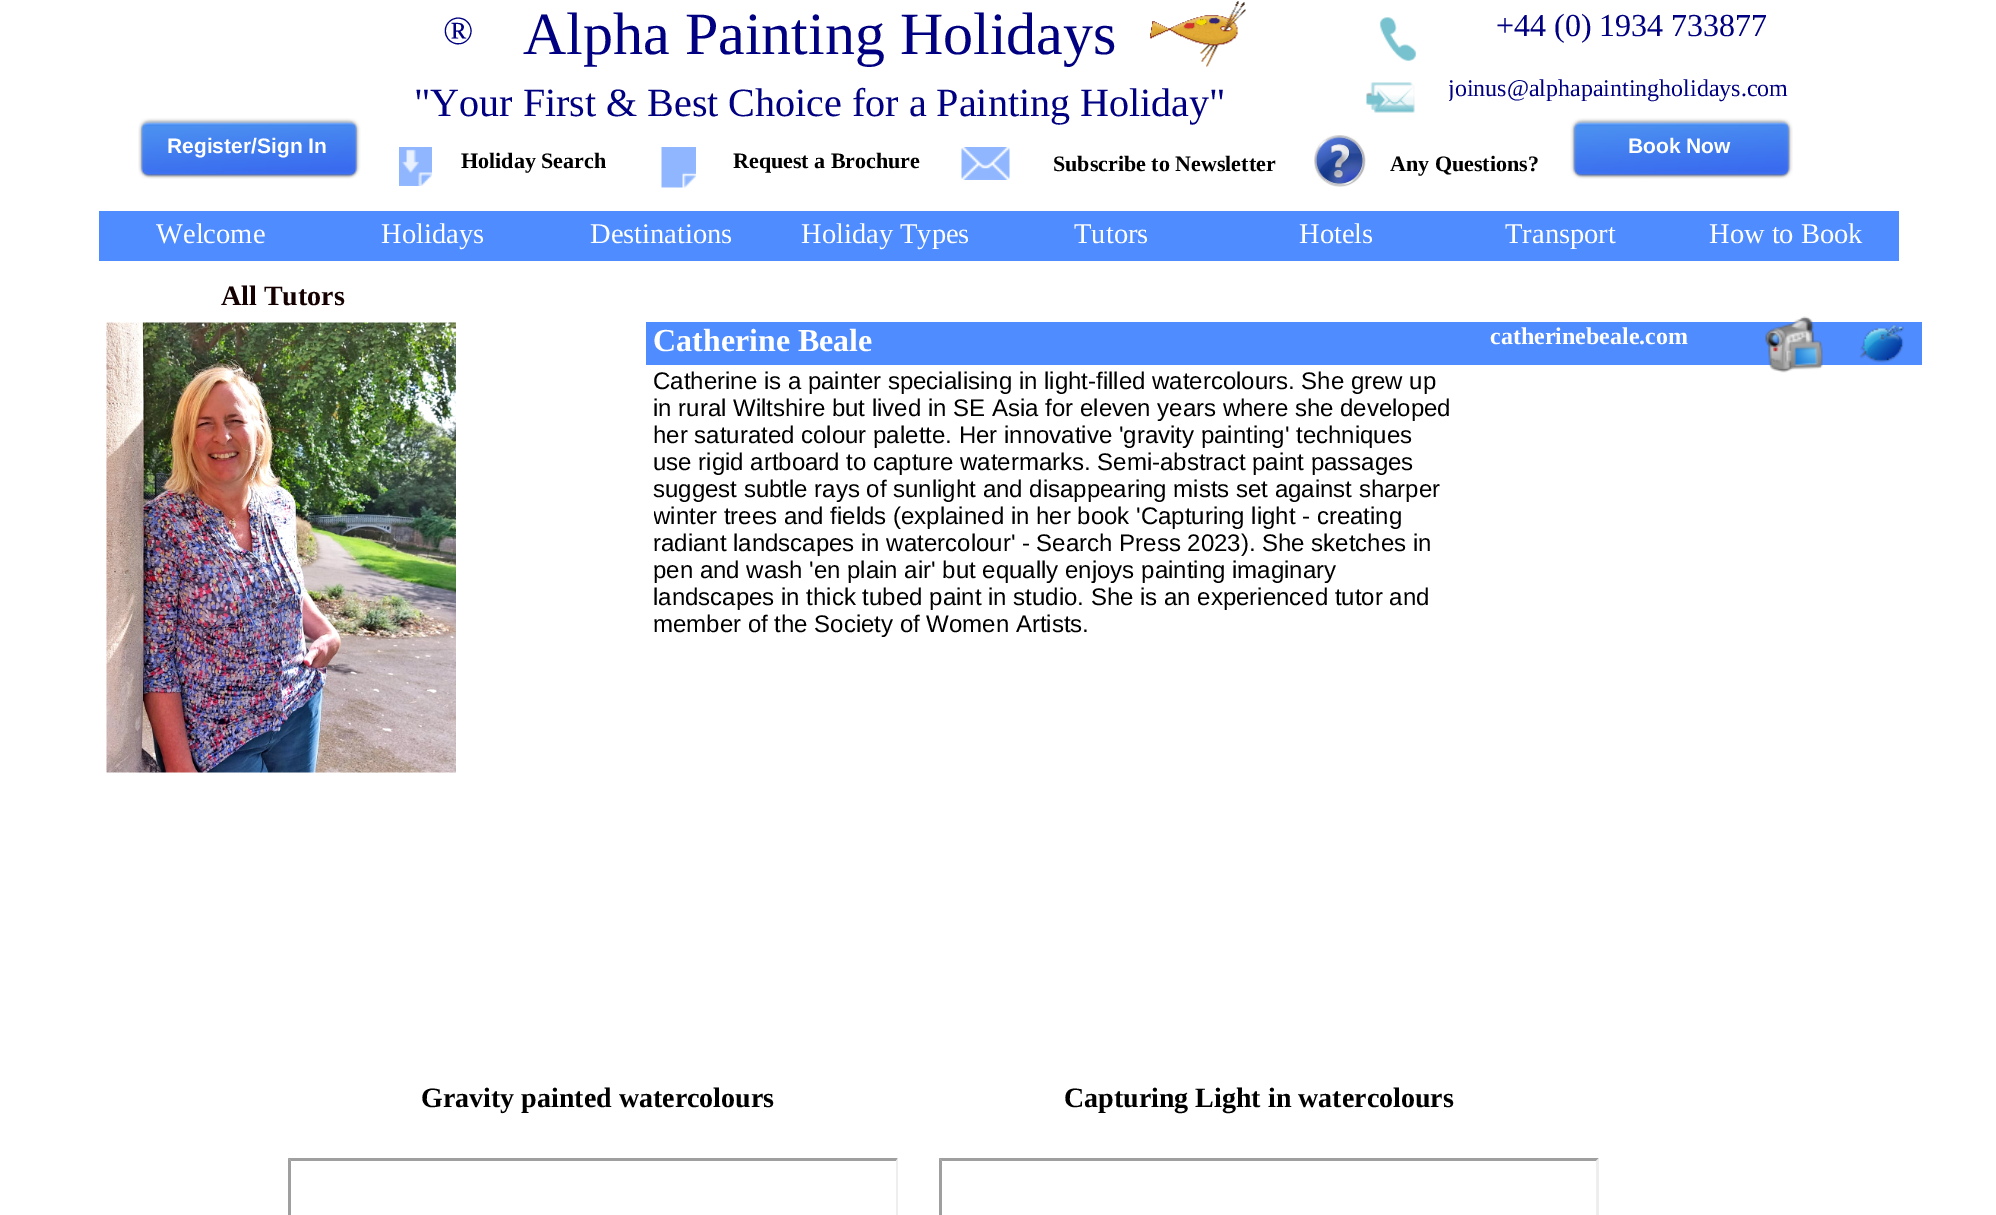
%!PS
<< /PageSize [1996 1215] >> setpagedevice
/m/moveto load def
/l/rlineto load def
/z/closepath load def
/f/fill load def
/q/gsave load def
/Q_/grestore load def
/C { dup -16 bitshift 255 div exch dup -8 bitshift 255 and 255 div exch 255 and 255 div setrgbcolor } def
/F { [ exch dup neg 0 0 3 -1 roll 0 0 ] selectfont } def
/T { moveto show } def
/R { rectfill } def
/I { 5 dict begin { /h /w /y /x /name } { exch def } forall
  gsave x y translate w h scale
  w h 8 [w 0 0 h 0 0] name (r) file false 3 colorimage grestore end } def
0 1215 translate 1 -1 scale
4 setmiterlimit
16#FFFFFF C
0 0 1996 1215 R
/LiberationSerif-Regular 40.05 F
16#000080 C
(®) 443 44 T
/LiberationSerif-Regular 60 F
(Alpha Painting Holidays) 523 54 T
(1.rgb) 1150 1 96 66 I
(2.rgb) 1379 17 38 44 I
/LiberationSerif-Regular 32 F
(+44 \(0\) 1934 733877) 1496 36 T
/LiberationSerif-Regular 40.05 F
("Your First & Best Choice for a Painting Holiday") 414 116 T
(3.rgb) 1366 82 49 31 I
q
1449 75 413 44 rectclip
/LiberationSerif-Regular 24 F
(joinus@alphapaintingholidays.com) 1448 96 T
Q_
(4.rgb) 138 118 223 61 I
/LiberationSans-Bold 21 F
16#FFFFFF C
(Register/Sign In) 167 153 T
(5.rgb) 399 147 33 39 I
/LiberationSerif-Bold 22 F
16#000000 C
(Holiday Search) 461 168 T
(6.rgb) 661 147 35 41 I
(Request a Brochure) 733 168 T
(7.rgb) 961 147 49 33 I
(Subscribe to Newsletter) 1053 171 T
(8.rgb) 1314 135 52 52 I
(Any Questions?) 1390 171 T
(9.rgb) 1570 118 223 61 I
/LiberationSans-Bold 21 F
16#FFFFFF C
(Book Now) 1628 153 T
16#4F8CFF C
99 211 1800 50 R
/LiberationSerif-Regular 28.5 F
16#FFFFFF C
(Welcome) 156 243 T
(Holidays) 381 243 T
(Destinations) 590 243 T
(Holiday Types) 801 243 T
(Tutors) 1074 243 T
(Hotels) 1299 243 T
(Transport) 1505 243 T
(How to Book) 1709 243 T
/LiberationSerif-Bold 28 F
16#140000 C
(All Tutors) 221 305 T
(10.rgb) 106 322 350 451 I
16#4F8CFF C
646 322 1276 43 R
(11.rgb) 1765 316 58 57 I
/LiberationSerif-Bold 32 F
16#FFFFFF C
(Catherine Beale) 653 351 T
/LiberationSerif-Bold 24 F
(catherinebeale.com) 1490 344 T
(12.rgb) 1859 324 45 39 I
/LiberationSans-Regular 24 F
16#000000 C
(Catherine is a painter specialising in light-filled watercolours. She grew up) 653 389 T
(in rural Wiltshire but lived in SE Asia for eleven years where she developed) 653 416 T
(her saturated colour palette. Her innovative 'gravity painting' techniques) 653 443 T
(use rigid artboard to capture watermarks. Semi-abstract paint passages) 653 470 T
(suggest subtle rays of sunlight and disappearing mists set against sharper) 653 497 T
q
654 368 1125 423 rectclip
(winter trees and fields \(explained in her book 'Capturing light - creating) 653 524 T
Q_
(radiant landscapes in watercolour' - Search Press 2023\). She sketches in) 653 551 T
(pen and wash 'en plain air' but equally enjoys painting imaginary) 653 578 T
(landscapes in thick tubed paint in studio. She is an experienced tutor and) 653 605 T
(member of the Society of Women Artists.) 653 632 T
/LiberationSerif-Bold 28 F
(Gravity painted watercolours) 421 1107 T
(Capturing Light in watercolours) 1064 1107 T
16#9F9F9F C
288 1158 m 610 0 l -2 3 l -605 0 l z f
16#EEEEEE C
898 1158 m 0 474 l -2 -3 l 0 -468 l z f
16#9F9F9F C
288 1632 m 0 -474 l 3 3 l 0 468 l z f
939 1158 m 660 0 l -3 3 l -654 0 l z f
16#EEEEEE C
1599 1158 m 0 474 l -3 -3 l 0 -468 l z f
16#9F9F9F C
939 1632 m 0 -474 l 3 3 l 0 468 l z f
showpage
